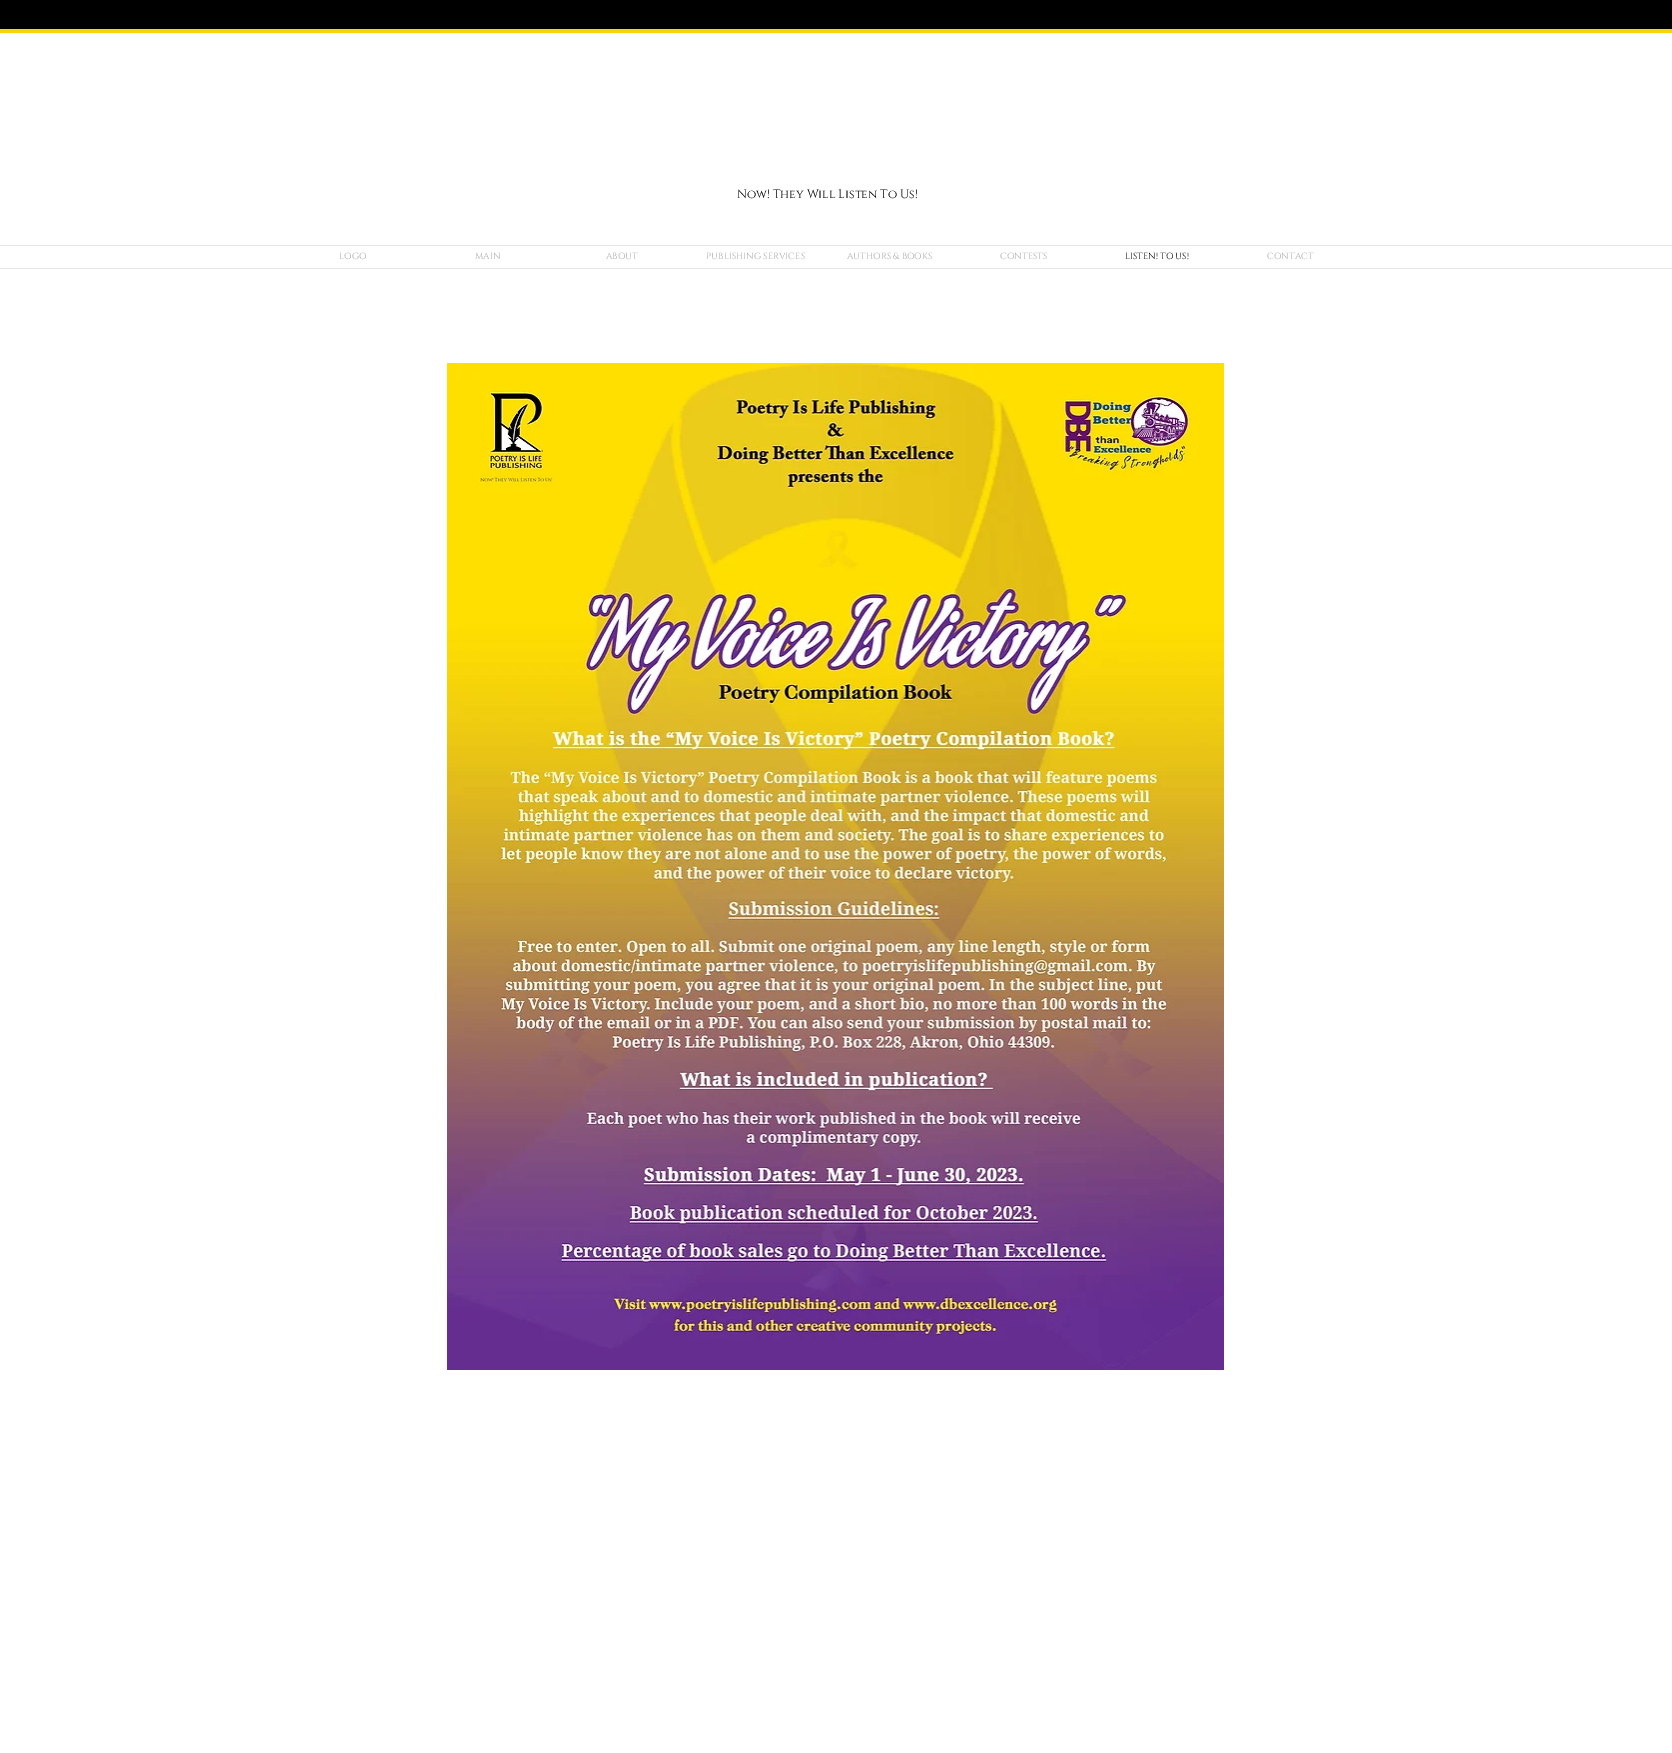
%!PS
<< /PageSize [1672 1753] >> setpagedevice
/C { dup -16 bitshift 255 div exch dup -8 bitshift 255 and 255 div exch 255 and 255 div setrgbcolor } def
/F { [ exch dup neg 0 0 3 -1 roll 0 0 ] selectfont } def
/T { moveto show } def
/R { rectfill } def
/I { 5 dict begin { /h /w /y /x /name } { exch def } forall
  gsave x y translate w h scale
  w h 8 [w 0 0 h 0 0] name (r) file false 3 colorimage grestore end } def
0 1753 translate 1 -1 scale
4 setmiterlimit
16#FFFFFF C
0 0 1672 1753 R
16#000000 C
0 0 1672 29 R
16#FAD20A C
0 29 1672 4 R
/Cinzel-Regular 12 F
16#000000 C
(Now! They Will Listen To Us!) 737 198 T
16#E5E5E5 C
0 245 1672 1 R
/Cinzel-Regular 9 F
16#ABAAAA C
(LOGO) 339 259 T
(MAIN) 475 259 T
(ABOUT) 606 259 T
(PUBLISHING SERVICES) 706 259 T
(AUTHORS & BOOKS) 847 259 T
(CONTESTS) 1000 259 T
16#000000 C
(LISTEN! TO US!) 1125 259 T
16#ABAAAA C
(CONTACT) 1267 259 T
16#E5E5E5 C
0 268 1672 1 R
(1.rgb) 447 363 777 1007 I
showpage
